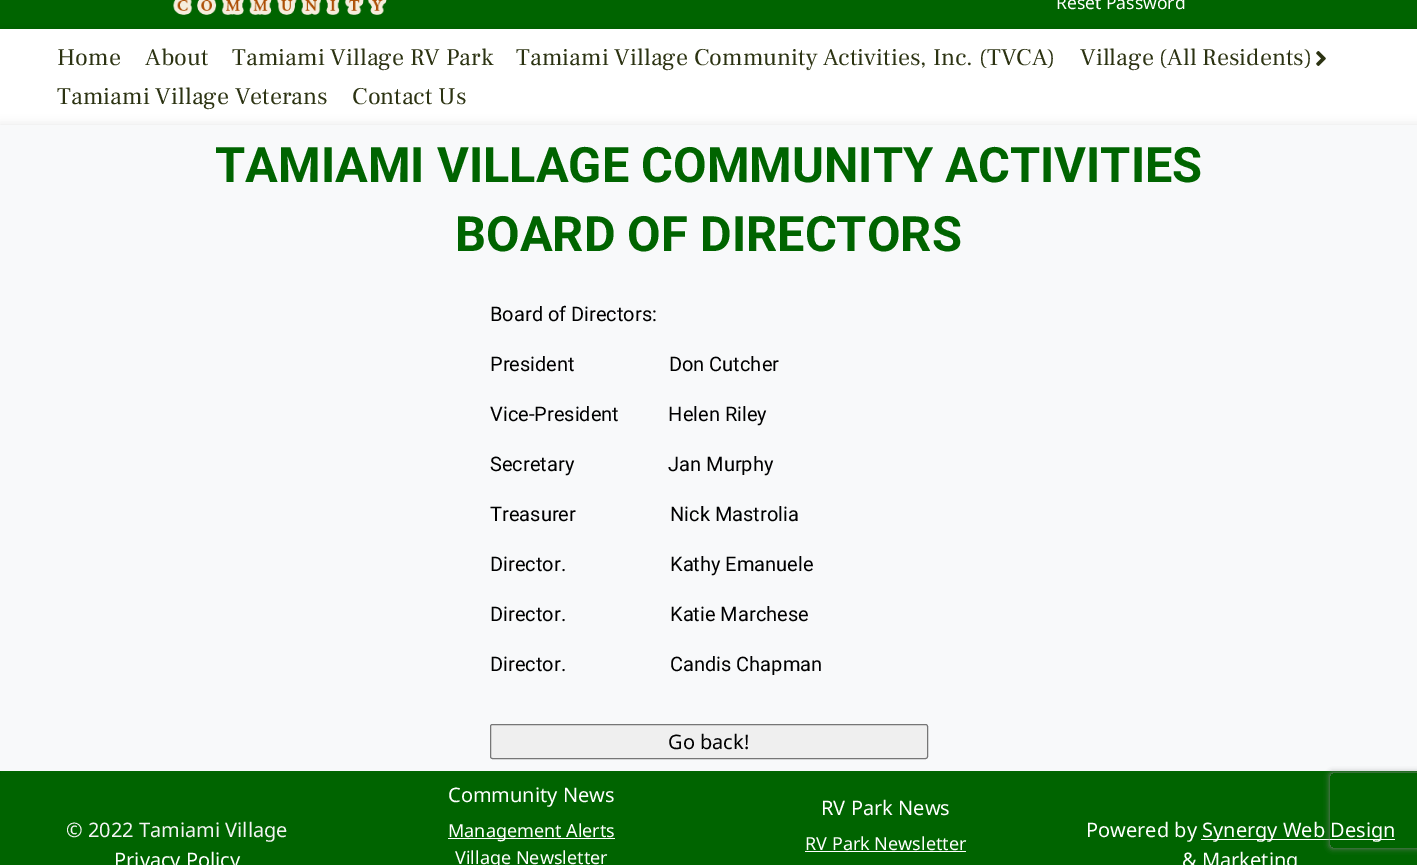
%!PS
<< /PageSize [1417 865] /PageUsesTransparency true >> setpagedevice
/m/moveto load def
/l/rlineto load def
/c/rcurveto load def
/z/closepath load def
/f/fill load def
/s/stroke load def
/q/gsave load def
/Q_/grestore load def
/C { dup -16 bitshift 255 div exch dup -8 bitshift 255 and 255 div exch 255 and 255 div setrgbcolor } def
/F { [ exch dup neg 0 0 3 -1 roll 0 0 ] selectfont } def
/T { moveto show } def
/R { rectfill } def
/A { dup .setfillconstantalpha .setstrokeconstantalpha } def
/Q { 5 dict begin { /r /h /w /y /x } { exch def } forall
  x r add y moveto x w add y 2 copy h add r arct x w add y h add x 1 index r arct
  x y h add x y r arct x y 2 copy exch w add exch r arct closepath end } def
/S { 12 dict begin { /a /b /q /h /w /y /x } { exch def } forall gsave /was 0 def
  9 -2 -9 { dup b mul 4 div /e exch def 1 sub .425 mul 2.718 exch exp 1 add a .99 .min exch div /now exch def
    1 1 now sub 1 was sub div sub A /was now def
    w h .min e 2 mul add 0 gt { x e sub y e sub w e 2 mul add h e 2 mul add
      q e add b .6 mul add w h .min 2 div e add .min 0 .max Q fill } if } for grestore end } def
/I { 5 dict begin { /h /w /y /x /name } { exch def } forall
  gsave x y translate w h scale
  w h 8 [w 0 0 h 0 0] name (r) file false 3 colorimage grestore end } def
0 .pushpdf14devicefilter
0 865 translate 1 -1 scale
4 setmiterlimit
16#006400 C
0 0 1417 865 R
16#000000 C
0 29 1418 96 0 5 .1 S
(1.rgb) 173 0 214 15 I
/NotoSans-Regular 17.5 F
16#FFFFFF C
(Reset Password) 1056 9 T
0 29 1417 96 R
/FrankRuhlLibre-Regular 24 F
16#2C3312 C
(Home) 57 65 T
(About) 145 65 T
(Tamiami Village RV Park) 232 65 T
(Tamiami Village Community Activities, Inc. \(TVCA\)) 516 65 T
(Village \(All Residents\)) 1080 65 T
(2.rgb) 1316 51 10 15 I
16#000000 C
0 125 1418 646 0 5 .1 S
16#2C3312 C
(Tamiami Village Veterans) 57 104 T
(Contact Us) 352 104 T
16#F8F9FA C
0 125 1417 646 R
/Roboto-Bold 48.75 F
16#006400 C
(TAMIAMI VILLAGE COMMUNITY ACTIVITIES) 215 182 T
(BOARD OF DIRECTORS) 455 251 T
/Roboto-Regular 20 F
16#000000 C
(Board of Directors:) 490 321 T
(President                   Don Cutcher) 490 371 T
(Vice-President          Helen Riley) 490 421 T
(Secretary                   Jan Murphy) 490 471 T
(Treasurer                   Nick Mastrolia) 490 521 T
(Director.) 490 571 T
(Kathy Emanuele) 670 571 T
(Director.                     Katie Marchese) 490 621 T
(Director.                     Candis Chapman) 490 671 T
16#EFEFEF C
490.5 724.5 437 34 2 Q q f Q_
16#767676 C
s
/NotoSans-Regular 20 F
16#000000 C
(Go back!) 668 749 T
16#006400 C
1 771 1416 3 R
16#FFFFFF C
1201 839 194 1 R
q
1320 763 m 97 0 l 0 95 l -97 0 l z 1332.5 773 m 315 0 l 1.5 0 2.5 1 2.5 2.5 c 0 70 l 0 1.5 -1 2.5 -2.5 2.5 c -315 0 l -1.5 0 -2.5 -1 -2.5 -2.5 c 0 -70 l 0 -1.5 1 -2.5 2.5 -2.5 c z eoclip newpath
16#808080 C
1330 773 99 75 2.5 3 1 S
Q_
16#F4F4F4 C
(© 2022 Tamiami Village) 66 837 T
16#FFFFFF C
(Privacy Policy) 114 867 T
(Community News) 448 802 T
448 838 167 1 R
/NotoSans-Regular 18 F
(Management Alerts) 448 837 T
(Village Newsletter) 455 864 T
/NotoSans-Regular 20 F
(RV Park News) 821 815 T
/NotoSans-Regular 18 F
(RV Park Newsletter) 805 850 T
805 851 161 1 R
/NotoSans-Regular 20 F
(Powered by) 1086 837 T
(Synergy Web Design) 1202 837 T
(& Marketing) 1182 867 T
.poppdf14devicefilter showpage
